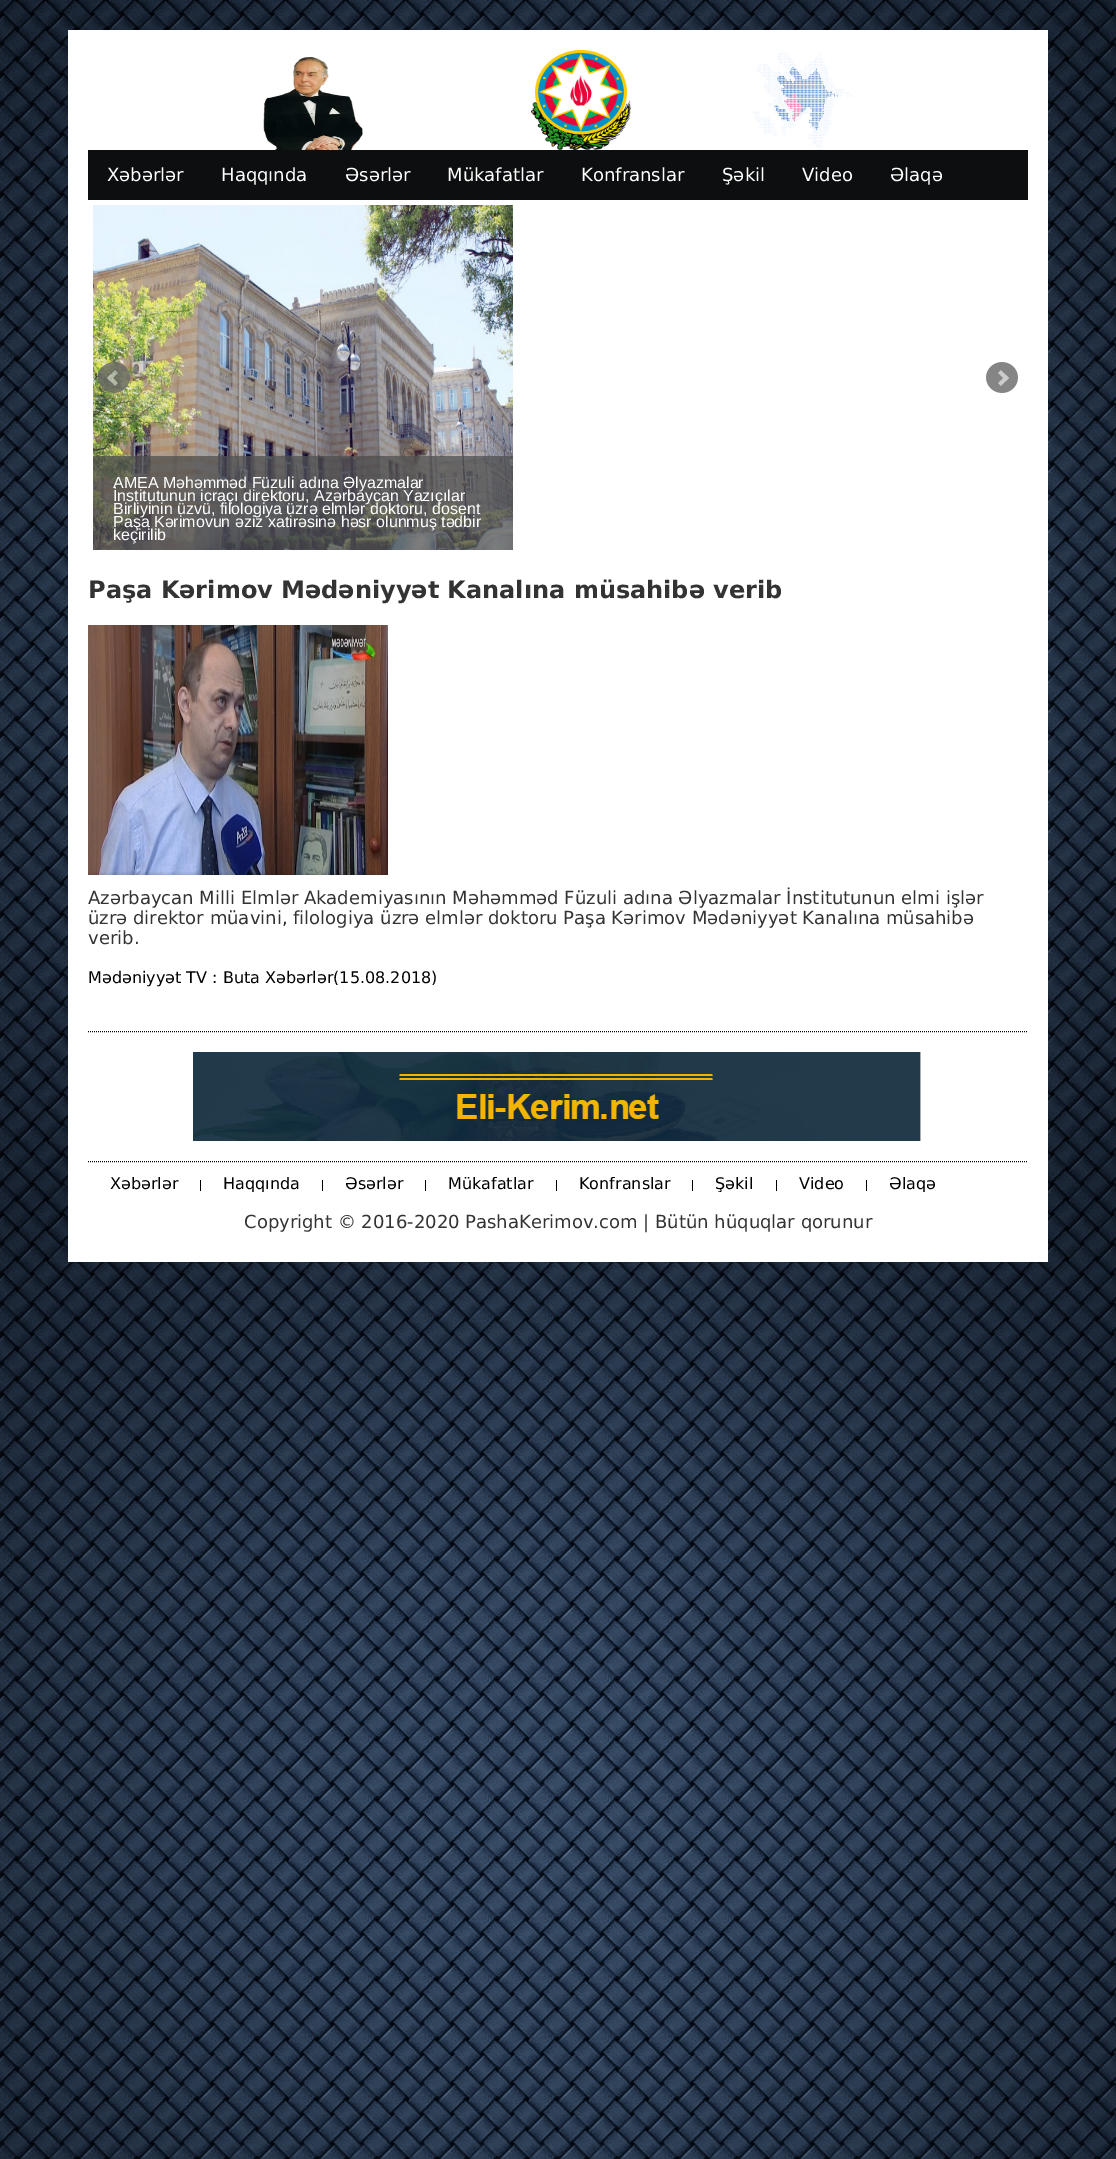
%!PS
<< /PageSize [1116 2159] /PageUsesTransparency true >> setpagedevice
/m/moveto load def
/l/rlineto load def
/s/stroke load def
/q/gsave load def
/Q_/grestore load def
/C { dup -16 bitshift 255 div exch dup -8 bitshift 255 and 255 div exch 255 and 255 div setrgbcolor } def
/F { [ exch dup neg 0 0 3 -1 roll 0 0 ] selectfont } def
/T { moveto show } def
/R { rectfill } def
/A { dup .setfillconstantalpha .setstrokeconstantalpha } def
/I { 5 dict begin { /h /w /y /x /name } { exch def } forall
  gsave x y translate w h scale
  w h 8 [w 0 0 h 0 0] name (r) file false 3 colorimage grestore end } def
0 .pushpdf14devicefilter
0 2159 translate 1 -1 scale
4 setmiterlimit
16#FFFFFF C
0 0 1116 2159 R
(1.rgb) 0 0 1116 2159 I
68 30 980 1232 R
(2.rgb) 263 57 100 93 I
(3.rgb) 531 50 100 100 I
(4.rgb) 753 50 100 100 I
16#0D0E0F C
88 150 940 50 R
/DejaVuSans-Regular 18 F
16#FFFFFF C
(Xəbərlər) 107 181 T
(Haqqında) 221 181 T
(Əsərlər) 345 181 T
(Mükafatlar) 447 181 T
(Konfranslar) 581 181 T
(Şəkil) 722 181 T
(Video) 802 181 T
(Əlaqə) 890 181 T
(7.rgb) 93 205 420 345 I
(5.rgb) 98 362 32 31 I
(6.rgb) 986 362 32 31 I
0.75 A
16#505050 C
93 456 420 94 R
/LiberationSans-Regular 16 F
1 A
16#FFFFFF C
(AMEA Məhəmməd Füzuli adına Əlyazmalar) 113 488 T
(İnstitutunun icraçı direktoru, Azərbaycan Yazıçılar) 113 501 T
(Birliyinin üzvü, filologiya üzrə elmlər doktoru, dosent) 113 514 T
(Paşa Kərimovun əziz xatirəsinə həsr olunmuş tədbir) 113 527 T
(keçirilib) 113 540 T
/DejaVuSans-Bold 24 F
16#333333 C
(Paşa Kərimov Mədəniyyət Kanalına müsahibə verib) 88 598 T
(8.rgb) 88 625 300 250 I
/DejaVuSans-Regular 18 F
(Azərbaycan Milli Elmlər Akademiyasının Məhəmməd Füzuli adına Əlyazmalar İnstitutunun elmi işlər) 88 904 T
(üzrə direktor müavini, filologiya üzrə elmlər doktoru Paşa Kərimov Mədəniyyət Kanalına müsahibə) 88 924 T
(verib.) 88 944 T
/DejaVuSans-Regular 16 F
16#000000 C
(Mədəniyyət TV : Buta Xəbərlər\(15.08.2018\)) 88 983 T
[1 1] 0 setdash
88 1031.5 m 940 0 l s
88 1161.5 m 940 0 l s
(9.rgb) 193 1052 728 89 I
200 1180 1 11 R
q
88 1177 940 15 rectclip
(Xəbərlər) 110 1189 T
Q_
322 1180 1 11 R
q
88 1177 940 15 rectclip
(Haqqında) 223 1189 T
Q_
425 1180 1 11 R
(Əsərlər) 345 1189 T
556 1180 1 11 R
q
88 1177 940 15 rectclip
(Mükafatlar) 448 1189 T
Q_
692 1180 1 11 R
q
88 1177 940 15 rectclip
(Konfranslar) 579 1189 T
Q_
776 1180 1 11 R
q
88 1177 940 15 rectclip
(Şəkil) 715 1189 T
Q_
866 1180 1 11 R
q
88 1177 940 15 rectclip
(Video) 799 1189 T
(Əlaqə) 889 1189 T
Q_
/DejaVuSans-Regular 18 F
16#333333 C
(Copyright © 2016-2020 PashaKerimov.com | Bütün hüquqlar qorunur) 244 1228 T
.poppdf14devicefilter showpage
